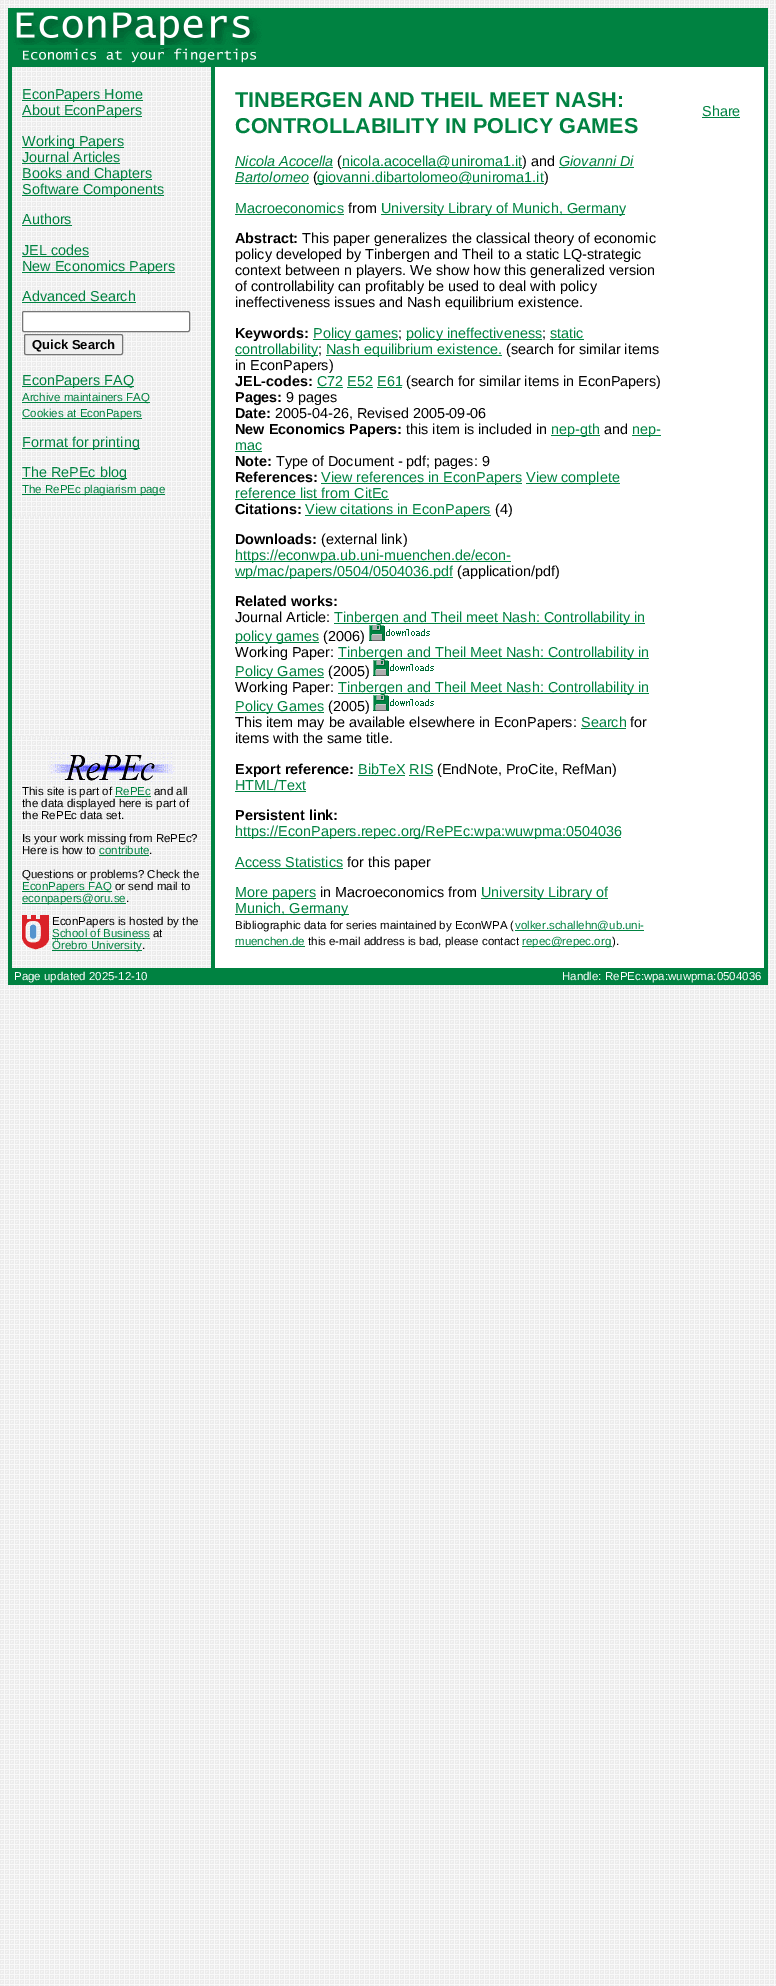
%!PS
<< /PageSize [776 1986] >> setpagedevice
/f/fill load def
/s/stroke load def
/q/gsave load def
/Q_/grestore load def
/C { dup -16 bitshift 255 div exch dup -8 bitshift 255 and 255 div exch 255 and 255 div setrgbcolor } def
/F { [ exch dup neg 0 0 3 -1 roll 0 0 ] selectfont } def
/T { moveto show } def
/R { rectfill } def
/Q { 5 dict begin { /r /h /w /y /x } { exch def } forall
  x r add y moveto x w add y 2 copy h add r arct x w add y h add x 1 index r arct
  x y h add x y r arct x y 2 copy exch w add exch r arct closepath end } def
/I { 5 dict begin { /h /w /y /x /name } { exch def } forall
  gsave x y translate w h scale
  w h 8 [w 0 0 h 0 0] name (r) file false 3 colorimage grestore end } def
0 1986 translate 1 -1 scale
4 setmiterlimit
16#FFFFFF C
0 0 776 1986 R
(1.rgb) 0 0 776 1986 I
16#008241 C
8 8 4 977 R
12 8 752 40 R
(2.rgb) 13 10 249 35 I
764 8 4 977 R
12 48 752 19 R
(3.rgb) 18 48 239 15 I
(4.rgb) 12 67 199 449 I
22 100 121 1 R
/LiberationSans-Regular 14.4 F
(EconPapers Home) 22 99 T
22 116 120 1 R
(About EconPapers) 22 115 T
22 147 102 1 R
(Working Papers) 22 146 T
(Journal Articles) 22 162 T
22 163 98 1 R
22 179 130 1 R
(Books and Chapters) 22 178 T
22 195 142 1 R
(Software Components) 22 194 T
(Authors) 22 224 T
22 225 50 1 R
(JEL codes) 22 255 T
22 256 67 1 R
22 272 153 1 R
(New Economics Papers) 22 271 T
(Advanced Search) 22 301 T
22 302 114 1 R
16#FFFFFF C
22.5 311.5 167 20 1.5 Q q f Q_
16#767676 C
s
16#EFEFEF C
24.5 334.5 98 20 1.5 Q q f Q_
16#767676 C
s
/LiberationSans-Bold 13 F
16#000000 C
(Quick Search) 32 349 T
16#008241 C
22 386 112 1 R
/LiberationSans-Regular 14.4 F
(EconPapers FAQ) 22 385 T
22 402 128 1 R
/LiberationSans-Regular 11.5 F
(Archive maintainers FAQ) 22 401 T
22 418 120 1 R
(Cookies at EconPapers) 22 417 T
22 448 118 1 R
/LiberationSans-Regular 14.4 F
(Format for printing) 22 447 T
22 478 105 1 R
(The RePEc blog) 22 477 T
22 494 143 1 R
/LiberationSans-Regular 11.5 F
(The RePEc plagiarism page) 22 493 T
211 67 4 901 R
16#FFFFFF C
215 67 549 901 R
/LiberationSans-Bold 21.6 F
16#008241 C
(TINBERGEN AND THEIL MEET NASH:) 235 107 T
(CONTROLLABILITY IN POLICY GAMES) 235 133 T
/LiberationSans-Italic 14.4 F
(Nicola Acocella) 235 166 T
235 167 98 1 R
/LiberationSans-Regular 14.4 F
16#000000 C
(\() 337 166 T
16#008241 C
342 167 180 1 R
(nicola.acocella@uniroma1.it) 342 166 T
16#000000 C
(\) and) 522 166 T
/LiberationSans-Italic 14.4 F
16#008241 C
(Giovanni Di) 559 166 T
559 167 75 1 R
(Bartolomeo) 235 182 T
235 183 74 1 R
/LiberationSans-Regular 14.4 F
16#000000 C
(\() 313 182 T
16#008241 C
317 183 227 1 R
(giovanni.dibartolomeo@uniroma1.it) 317 182 T
16#000000 C
(\)) 544 182 T
16#008241 C
(Macroeconomics) 235 213 T
235 214 109 1 R
16#000000 C
(from) 348 213 T
16#008241 C
381 214 244 1 R
(University Library of Munich, Germany) 381 213 T
/LiberationSans-Bold 14.4 F
16#000000 C
(Abstract:) 235 243 T
/LiberationSans-Regular 14.4 F
(This paper generalizes the classical theory of economic) 302 243 T
(policy developed by Tinbergen and Theil to a static LQ-strategic) 235 259 T
(context between n players. We show how this generalized version) 235 275 T
(of controllability can profitably be used to deal with policy) 235 291 T
(ineffectiveness issues and Nash equilibrium existence.) 235 307 T
/LiberationSans-Bold 14.4 F
(Keywords:) 235 338 T
16#008241 C
313 339 85 1 R
/LiberationSans-Regular 14.4 F
(Policy games) 313 338 T
16#000000 C
(;) 398 338 T
16#008241 C
406 339 136 1 R
(policy ineffectiveness) 406 338 T
16#000000 C
(;) 542 338 T
16#008241 C
(static) 550 338 T
550 339 34 1 R
235 355 83 1 R
(controllability) 235 354 T
16#000000 C
(;) 318 354 T
16#008241 C
326 355 176 1 R
(Nash equilibrium existence.) 326 354 T
16#000000 C
(\(search for similar items) 506 354 T
(in EconPapers\)) 235 370 T
/LiberationSans-Bold 14.4 F
(JEL-codes:) 235 386 T
/LiberationSans-Regular 14.4 F
16#008241 C
(C72 E52 E61) 317 386 T
317 387 26 1 R
16#000000 C
(\(search for similar items in EconPapers\)) 406 386 T
16#008241 C
347 387 26 1 R
377 387 25 1 R
/LiberationSans-Bold 14.4 F
16#000000 C
(Pages:) 235 402 T
/LiberationSans-Regular 14.4 F
(9 pages) 286 402 T
/LiberationSans-Bold 14.4 F
(Date:) 235 418 T
/LiberationSans-Regular 14.4 F
(2005-04-26, Revised 2005-09-06) 275 418 T
/LiberationSans-Bold 14.4 F
(New Economics Papers:) 235 434 T
/LiberationSans-Regular 14.4 F
(this item is included in) 406 434 T
16#008241 C
551 435 49 1 R
(nep-gth) 551 434 T
16#000000 C
(and) 604 434 T
16#008241 C
632 435 29 1 R
(nep-) 632 434 T
(mac) 235 450 T
235 451 27 1 R
/LiberationSans-Bold 14.4 F
16#000000 C
(Note:) 235 466 T
/LiberationSans-Regular 14.4 F
(Type of Document - pdf; pages: 9) 276 466 T
/LiberationSans-Bold 14.4 F
(References:) 235 482 T
16#008241 C
321 483 201 1 R
/LiberationSans-Regular 14.4 F
(View references in EconPapers) 321 482 T
526 483 94 1 R
(View complete) 526 482 T
(reference list from CitEc) 235 498 T
235 499 154 1 R
/LiberationSans-Bold 14.4 F
16#000000 C
(Citations:) 235 514 T
16#008241 C
305 515 186 1 R
/LiberationSans-Regular 14.4 F
(View citations in EconPapers) 305 514 T
16#000000 C
(\(4\)) 495 514 T
/LiberationSans-Bold 14.4 F
(Downloads:) 235 544 T
/LiberationSans-Regular 14.4 F
(\(external link\)) 321 544 T
16#008241 C
235 561 276 1 R
(https://econwpa.ub.uni-muenchen.de/econ-) 235 560 T
235 577 218 1 R
(wp/mac/papers/0504/0504036.pdf) 235 576 T
16#000000 C
(\(application/pdf\)) 457 576 T
/LiberationSans-Bold 14.4 F
(Related works:) 235 606 T
/LiberationSans-Regular 14.4 F
(Journal Article:) 235 622 T
16#008241 C
334 623 311 1 R
(Tinbergen and Theil meet Nash: Controllability in) 334 622 T
235 642 84 1 R
(policy games) 235 641 T
16#000000 C
(\(2006\)) 323 641 T
(5.rgb) 369 625 61 16 I
(Working Paper:) 235 657 T
16#008241 C
338 658 311 1 R
(Tinbergen and Theil Meet Nash: Controllability in) 338 657 T
235 677 89 1 R
(Policy Games) 235 676 T
16#000000 C
(\(2005\)) 328 676 T
(5.rgb) 373 660 61 16 I
(Working Paper:) 235 692 T
16#008241 C
338 693 311 1 R
(Tinbergen and Theil Meet Nash: Controllability in) 338 692 T
235 712 89 1 R
(Policy Games) 235 711 T
16#000000 C
(\(2005\)) 328 711 T
(5.rgb) 373 695 61 16 I
(This item may be available elsewhere in EconPapers:) 235 727 T
16#008241 C
(Search) 581 727 T
581 728 45 1 R
16#000000 C
(for) 630 727 T
(items with the same title.) 235 743 T
/LiberationSans-Bold 14.4 F
(Export reference:) 235 774 T
/LiberationSans-Regular 14.4 F
16#008241 C
(BibTeX RIS) 358 774 T
358 775 47 1 R
16#000000 C
(\(EndNote, ProCite, RefMan\)) 437 774 T
16#008241 C
409 775 24 1 R
(HTML/Text) 235 790 T
235 791 71 1 R
/LiberationSans-Bold 14.4 F
16#000000 C
(Persistent link:) 235 820 T
16#008241 C
235 837 386 1 R
/LiberationSans-Regular 14.4 F
(https://EconPapers.repec.org/RePEc:wpa:wuwpma:0504036) 235 836 T
(Access Statistics) 235 867 T
235 868 108 1 R
16#000000 C
(for this paper) 347 867 T
16#008241 C
235 898 81 1 R
(More papers) 235 897 T
16#000000 C
(in Macroeconomics from) 320 897 T
16#008241 C
481 898 127 1 R
(University Library of) 481 897 T
235 914 114 1 R
(Munich, Germany) 235 913 T
/LiberationSans-Regular 11.5 F
16#000000 C
(Bibliographic data for series maintained by EconWPA \() 235 929 T
16#008241 C
515 930 129 1 R
(volker.schallehn@ub.uni-) 515 929 T
(muenchen.de) 235 945 T
235 946 70 1 R
16#000000 C
(this e-mail address is bad, please contact) 308 945 T
16#008241 C
522 946 90 1 R
(repec@repec.org) 522 945 T
16#000000 C
(\).) 612 945 T
/LiberationSans-Regular 14.4 F
16#008241 C
(Share) 702 116 T
702 117 38 1 R
(6.rgb) 12 736 199 232 I
(7.rgb) 48 753 127 29 I
/LiberationSans-Regular 11.5 F
16#000000 C
(This site is part of) 22 795 T
16#008241 C
(RePEc) 115 795 T
115 796 36 1 R
16#000000 C
(and all) 154 795 T
(the data displayed here is part of) 22 807 T
(the RePEc data set.) 22 819 T
(Is your work missing from RePEc?) 22 842 T
(Here is how to) 22 854 T
16#008241 C
(contribute) 99 854 T
99 855 50 1 R
16#000000 C
(.) 149 854 T
(Questions or problems? Check the) 22 878 T
16#008241 C
22 891 90 1 R
(EconPapers FAQ) 22 890 T
16#000000 C
(or send mail to) 115 890 T
16#008241 C
22 903 104 1 R
(econpapers@oru.se) 22 902 T
16#000000 C
(.) 126 902 T
(8.rgb) 22 915 27 35 I
(EconPapers is hosted by the) 52 925 T
16#008241 C
(School of Business) 52 937 T
52 938 98 1 R
16#000000 C
(at) 153 937 T
16#008241 C
52 950 90 1 R
(Örebro University) 52 949 T
16#000000 C
(.) 142 949 T
16#008241 C
12 968 752 17 R
16#FFFFFF C
(Page updated 2025-12-10) 14 980 T
(Handle: RePEc:wpa:wuwpma:0504036) 562 980 T
showpage
